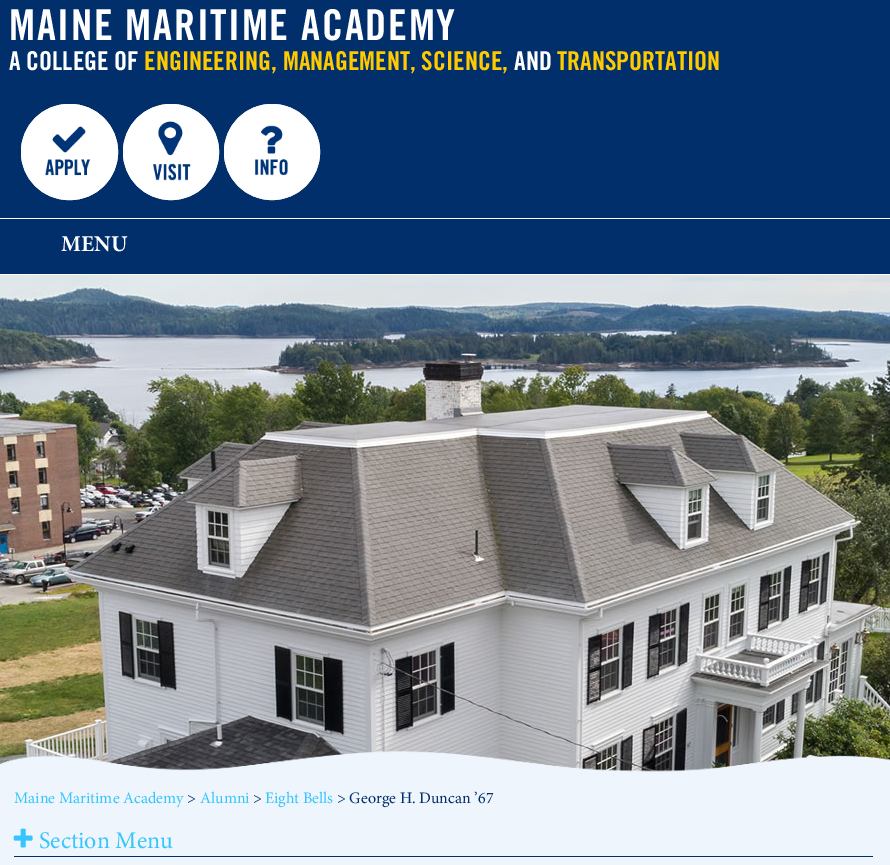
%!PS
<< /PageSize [890 865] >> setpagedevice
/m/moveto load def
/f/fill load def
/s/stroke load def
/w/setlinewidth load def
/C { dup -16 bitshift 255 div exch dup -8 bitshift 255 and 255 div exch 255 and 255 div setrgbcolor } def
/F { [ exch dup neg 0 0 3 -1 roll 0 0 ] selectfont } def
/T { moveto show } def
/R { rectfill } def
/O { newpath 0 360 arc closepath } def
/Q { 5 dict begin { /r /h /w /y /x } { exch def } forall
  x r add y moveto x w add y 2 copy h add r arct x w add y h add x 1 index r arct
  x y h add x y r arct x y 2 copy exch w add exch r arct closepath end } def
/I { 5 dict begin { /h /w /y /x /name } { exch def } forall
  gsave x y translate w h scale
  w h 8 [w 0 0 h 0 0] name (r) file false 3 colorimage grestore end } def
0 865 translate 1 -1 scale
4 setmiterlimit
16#FFFFFF C
0 0 890 865 R
16#002F6C C
0 0 890 274 R
/TradeGothic-Bold 42.5 F
16#FFFFFF C
9 40 m 1.7 0 (MAINE MARITIME ACADEMY) ashow
/TradeGothic-Bold 26 F
(A COLLEGE OF) 9 70 T
16#FFCB00 C
(ENGINEERING, MANAGEMENT, SCIENCE,) 144 70 T
16#FFFFFF C
(AND) 514 70 T
16#FFCB00 C
(TRANSPORTATION) 557 70 T
16#FFFFFF C
21 104 97 96 48 Q f
(1.rgb) 45 126 45 50 I
4 w
23 106 93 92 46 Q s
171 152 48 O f
(2.rgb) 152 121 39 60 I
171 152 46 O s
272 152 48 O f
(3.rgb) 255 125 33 51 I
272 152 46 O s
0 218 890 1 R
/Minion-Bold 22.5 F
(MENU) 61 251 T
(4.rgb) 0 275 890 500 I
16#EEF5FC C
0 775 890 90 R
/Minion-Regular 16 F
16#36C6FD C
(Maine Maritime Academy) 14 803 T
16#002F6C C
(>) 187 803 T
16#36C6FD C
(Alumni) 200 803 T
16#002F6C C
(>) 253 803 T
16#36C6FD C
(Eight Bells) 265 803 T
16#002F6C C
(> George H. Duncan ’67) 337 803 T
14 856 859 1 R
(5.rgb) 13 828 20 20 I
/Minion-Regular 24 F
16#36C6FD C
(Section Menu) 39 848 T
showpage
